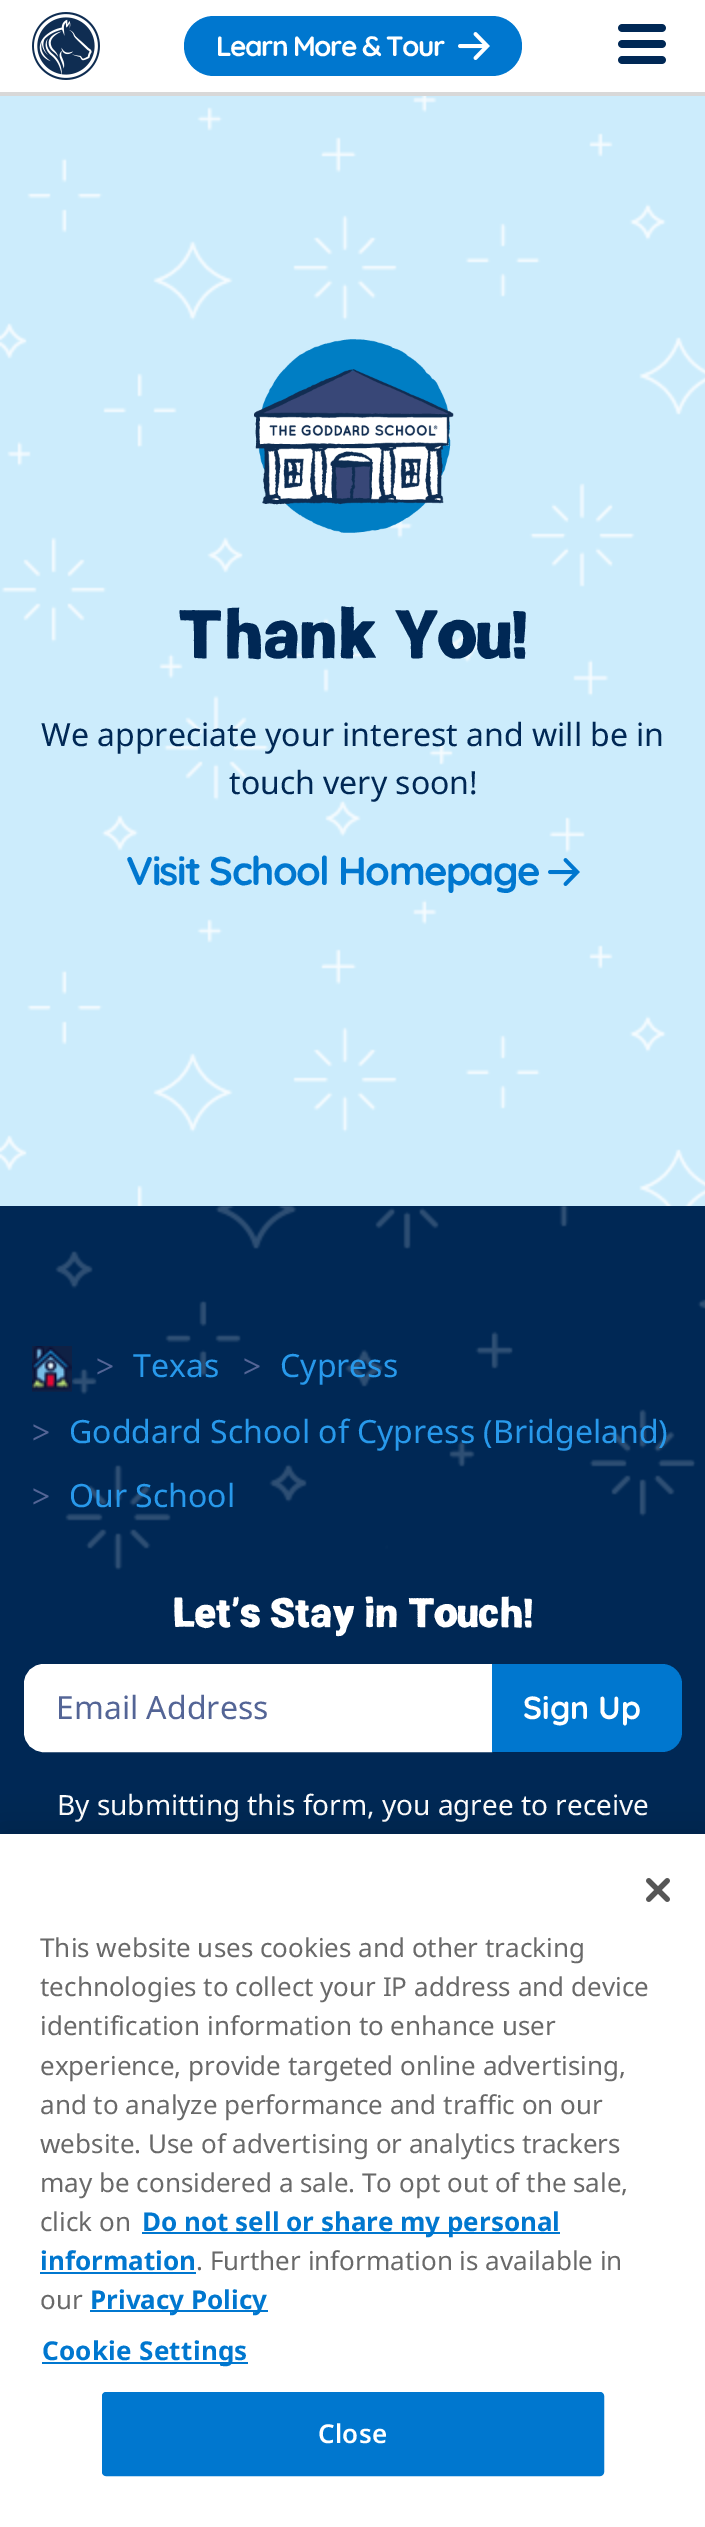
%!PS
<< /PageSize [705 2527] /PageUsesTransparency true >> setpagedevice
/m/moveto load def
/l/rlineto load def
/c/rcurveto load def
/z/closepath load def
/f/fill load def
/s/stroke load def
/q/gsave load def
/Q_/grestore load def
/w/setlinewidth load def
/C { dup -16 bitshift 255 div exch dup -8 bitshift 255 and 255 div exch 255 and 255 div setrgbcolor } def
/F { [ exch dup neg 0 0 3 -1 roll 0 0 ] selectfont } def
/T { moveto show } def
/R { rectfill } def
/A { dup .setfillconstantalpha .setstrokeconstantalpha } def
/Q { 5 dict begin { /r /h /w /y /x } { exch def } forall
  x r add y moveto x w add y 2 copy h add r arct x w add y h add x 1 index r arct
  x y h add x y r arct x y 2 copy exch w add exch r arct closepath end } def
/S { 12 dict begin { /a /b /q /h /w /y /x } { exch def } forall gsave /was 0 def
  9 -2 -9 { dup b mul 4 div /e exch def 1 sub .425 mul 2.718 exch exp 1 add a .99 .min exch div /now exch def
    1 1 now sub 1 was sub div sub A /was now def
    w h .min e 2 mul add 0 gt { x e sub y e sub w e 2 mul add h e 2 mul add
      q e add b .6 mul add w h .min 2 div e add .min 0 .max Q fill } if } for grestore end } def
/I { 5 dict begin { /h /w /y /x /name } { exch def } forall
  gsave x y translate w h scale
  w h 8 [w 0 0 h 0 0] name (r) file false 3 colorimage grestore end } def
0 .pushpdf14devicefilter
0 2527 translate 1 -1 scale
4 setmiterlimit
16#FFFFFF C
0 0 705 2527 R
16#D8D8D8 C
0 92 705 4 R
(1.rgb) 32 12 68 68 I
16#0077CF C
184 16 338 60 30 Q f
/Quicksand-Bold 28 F
16#FFFFFF C
216 56 m -1.6 0 (Learn More & Tour) ashow
(2.rgb) 458 32 32 28 I
(3.rgb) 618 24 48 40 I
(4.rgb) 0 96 705 1110 I
(5.rgb) 254 339 200 194 I
/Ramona-Bold 66.25 F
16#002855 C
(Thank You!) 178 658 T
/NotoSans-Regular 32 F
(We appreciate your interest and will be in) 41 746 T
(touch very soon!) 229 794 T
/Quicksand-Bold 40 F
16#0077CF C
126 885 m -1.6 0 (Visit School Homepage) ashow
(6.rgb) 548 858 32 28 I
16#002855 C
0 1206 705 628 R
(7.rgb) 55 1206 650 364 I
(8.rgb) 32 1346 40 46 I
/LiberationSerif-Bold 32 F
16#546596 C
(>) 96 1377 T
/NotoSans-Regular 32 F
16#2899EB C
(Texas) 133 1377 T
/LiberationSerif-Bold 32 F
16#546596 C
(>) 243 1377 T
/NotoSans-Regular 32 F
16#2899EB C
(Cypress) 280 1377 T
/LiberationSerif-Bold 32 F
16#546596 C
(>) 32 1443 T
/NotoSans-Regular 32 F
16#2899EB C
(Goddard School of Cypress \(Bridgeland\)) 69 1443 T
/LiberationSerif-Bold 32 F
16#546596 C
(>) 32 1507 T
/NotoSans-Regular 32 F
16#2899EB C
(Our School) 69 1507 T
/Ramona-Bold 40 F
16#FFFFFF C
(Let's Stay in Touch!) 172 1627 T
44 1668 m 444 0 l 0 80 l -444 0 l -9 0 -16 -7 -16 -16 c 0 -48 l 0 -9 7 -16 16 -16 c z q f Q_
8 w
s
/NotoSans-Regular 32 F
16#546596 C
(Email Address) 56 1719 T
16#0077CF C
492 1664 m 170 0 l 11 0 20 9 20 20 c 0 48 l 0 11 -9 20 -20 20 c -170 0 l z f
/Quicksand-Bold 32 F
16#FFFFFF C
(Sign Up) 523 1719 T
/NotoSans-Regular 28 F
(By submitting this form, you agree to receive) 57 1815 T
16#000000 C
0 1834 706 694 0 18 .2 S
16#FFFFFF C
0 1834 705 693 R
(9.rgb) 646 1878 24 24 I
/NotoSans-Regular 26 F
16#696969 C
(This website uses cookies and other tracking) 40 1957 T
(technologies to collect your IP address and device) 40 1996 T
(identification information to enhance user) 40 2035 T
(experience, provide targeted online advertising,) 40 2075 T
(and to analyze performance and traffic on our) 40 2114 T
(website. Use of advertising or analytics trackers) 40 2153 T
(may be considered a sale. To opt out of the sale,) 40 2192 T
(click on) 40 2231 T
16#0077CF C
142 2232 418 2 R
/NotoSans-Bold 26 F
(Do not sell or share my personal) 142 2231 T
(information) 40 2270 T
40 2272 156 2 R
/NotoSans-Regular 26 F
16#696969 C
(. Further information is available in) 196 2270 T
(our) 40 2309 T
16#0077CF C
90 2310 178 2 R
/NotoSans-Bold 26 F
(Privacy Policy) 90 2309 T
42 2362 206 2 R
42 2360 m .25 0 (Cookie Settings) ashow
103 2393 500 82 3 Q q f Q_
2 w
s
/NotoSans-SemiBold 26 F
16#FFFFFF C
318 2443 m .25 0 (Close) ashow
.poppdf14devicefilter showpage
